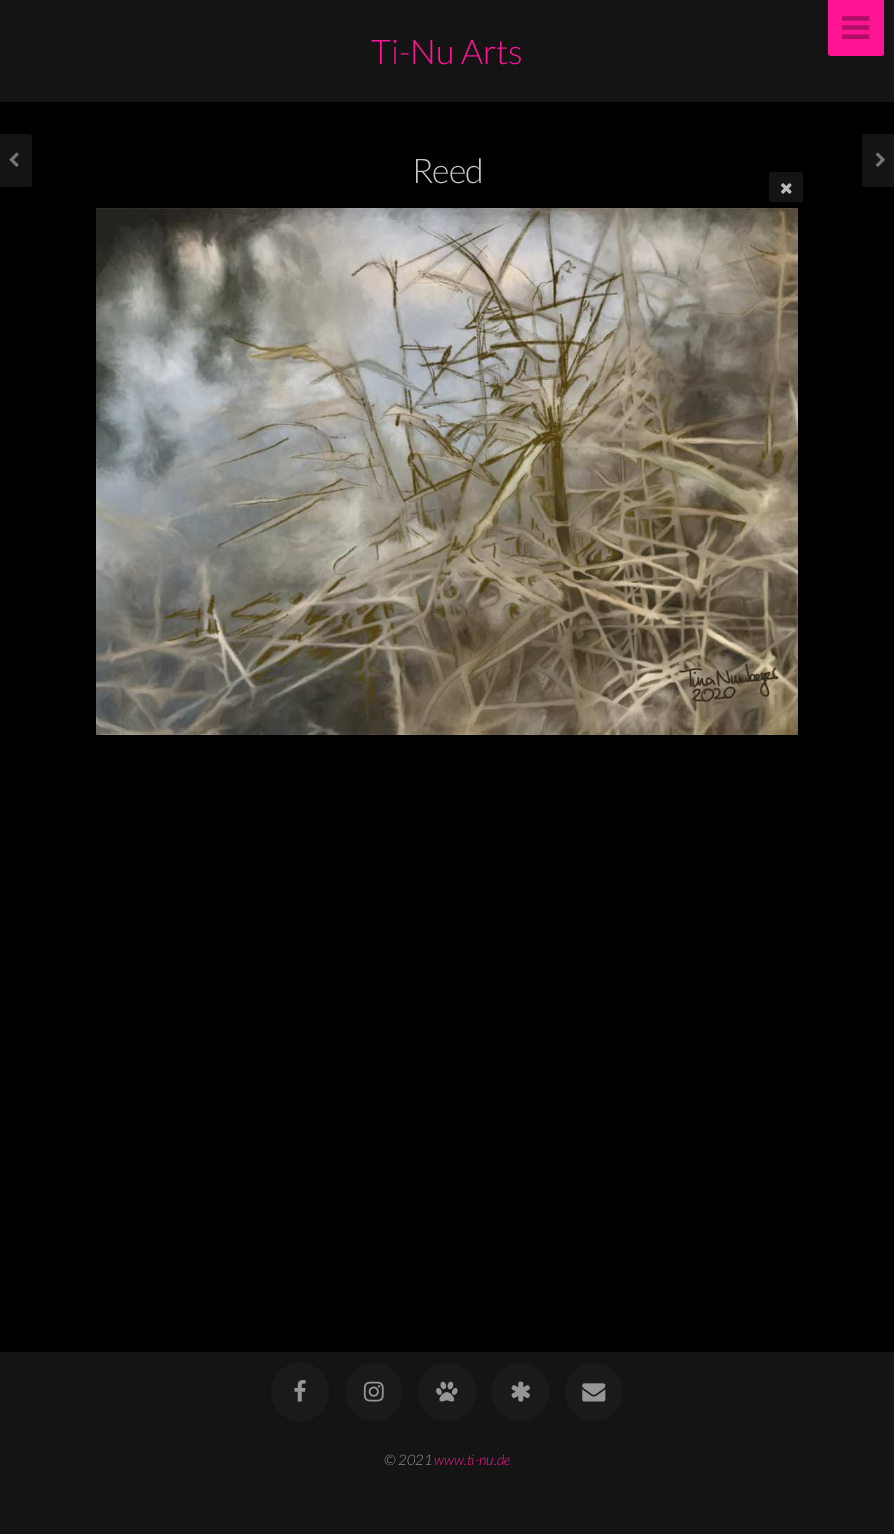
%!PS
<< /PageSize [894 1534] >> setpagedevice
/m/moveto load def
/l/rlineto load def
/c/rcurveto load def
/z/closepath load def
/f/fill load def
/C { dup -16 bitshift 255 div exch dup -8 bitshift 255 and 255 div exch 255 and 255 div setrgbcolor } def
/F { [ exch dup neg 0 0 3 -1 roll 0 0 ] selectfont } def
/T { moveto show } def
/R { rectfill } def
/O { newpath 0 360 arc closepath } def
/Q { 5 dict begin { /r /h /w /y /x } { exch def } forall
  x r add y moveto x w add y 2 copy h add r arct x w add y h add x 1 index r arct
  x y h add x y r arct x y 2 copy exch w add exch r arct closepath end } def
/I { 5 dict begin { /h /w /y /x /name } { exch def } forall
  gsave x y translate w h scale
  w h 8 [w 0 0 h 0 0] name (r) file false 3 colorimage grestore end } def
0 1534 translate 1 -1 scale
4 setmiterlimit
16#141414 C
0 0 894 1534 R
16#FF1493 C
828 0 m 56 0 l 0 53 l 0 1.5 -1.5 3 -3 3 c -50 0 l -1.5 0 -3 -1.5 -3 -3 c z f
(1.rgb) 842 16 28 23 I
16#000000 C
0 102 894 1250 R
/Lato-Light 34 F
16#FF1493 C
(Ti-Nu Arts) 371 64 T
16#141414 C
0 134 m 29 0 l 1.5 0 3 1.5 3 3 c 0 47 l 0 1.5 -1.5 3 -3 3 c -29 0 l z f
(2.rgb) 9 152 10 15 I
865 134 m 29 0 l 0 53 l -29 0 l -1.5 0 -3 -1.5 -3 -3 c 0 -47 l 0 -1.5 1.5 -3 3 -3 c z f
(3.rgb) 875 152 10 15 I
16#C5C5C5 C
412 183 m -1 0 (Reed) ashow
16#141414 C
772 172 m 28 0 l 1.5 0 3 1.5 3 3 c 0 27 l -34 0 l 0 -27 l 0 -1.5 1.5 -3 3 -3 c z f
(4.rgb) 781 183 11 11 I
(5.rgb) 96 208 702 527 I
16#1A1A1A C
300 1392 29 O f
(6.rgb) 294 1380 12 22 I
345 1363 57 58 28.5 Q f
(7.rgb) 363 1381 21 21 I
447 1392 29 O f
(8.rgb) 436 1381 22 21 I
492 1363 57 58 28.5 Q f
(9.rgb) 511 1381 19 21 I
594 1392 29 O f
(10.rgb) 582 1383 24 19 I
/Lato-LightItalic 14.5 F
16#969696 C
(© 2021) 384 1465 T
16#FF1493 C
(www.ti-nu.de) 434 1465 T
showpage
